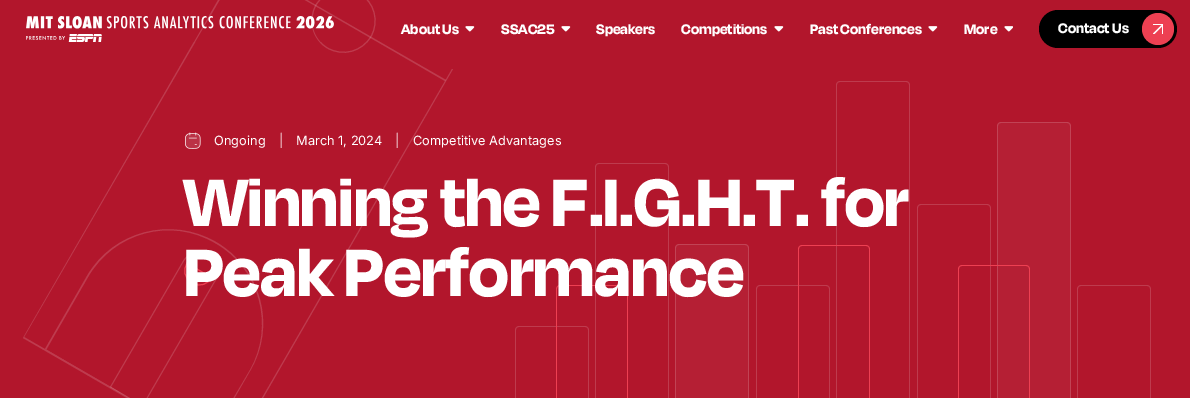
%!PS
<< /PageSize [1190 398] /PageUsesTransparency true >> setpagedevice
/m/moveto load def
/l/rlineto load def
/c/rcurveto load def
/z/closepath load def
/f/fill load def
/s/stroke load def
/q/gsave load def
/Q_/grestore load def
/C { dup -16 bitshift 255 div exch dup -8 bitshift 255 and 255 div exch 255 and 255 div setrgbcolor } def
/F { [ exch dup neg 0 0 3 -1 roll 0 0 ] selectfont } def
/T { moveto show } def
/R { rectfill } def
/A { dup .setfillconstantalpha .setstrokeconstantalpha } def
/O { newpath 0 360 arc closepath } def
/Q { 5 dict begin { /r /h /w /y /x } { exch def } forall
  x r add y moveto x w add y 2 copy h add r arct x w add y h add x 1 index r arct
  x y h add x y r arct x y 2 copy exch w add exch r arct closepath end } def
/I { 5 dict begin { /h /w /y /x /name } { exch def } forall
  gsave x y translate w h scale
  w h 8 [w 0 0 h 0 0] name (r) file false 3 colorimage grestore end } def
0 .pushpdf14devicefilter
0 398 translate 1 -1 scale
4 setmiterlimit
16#B2162C C
0 0 1190 398 R
16#BE3B4E C
229 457 m -206 -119 l 1 -1 l 205 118 l z f
23 338 m 224 -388 l 1 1 l -224 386 l z f
453 69 m -224 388 l 0 -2 l 223 -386 l z f
0.16 A
16#FFFFFF C
241 -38 m 205 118 l -1 1 l -204 -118 l z f
359.5 -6.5 m 15 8.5 20 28 11.5 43 c -9 15 -28 20.5 -43.5 11.5 c -15 -8.5 -20 -28 -11.5 -43 c 9 -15 28 -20.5 43.5 -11.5 c z s
1 A
(1.rgb) 26 16 308 26 I
/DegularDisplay-Bold 16 F
(About Us) 401 34 T
(2.rgb) 465 26 10 6 I
(SSAC25) 501 34 T
(2.rgb) 561 26 10 6 I
(Speakers) 596 34 T
(Competitions) 681 34 T
(2.rgb) 774 26 10 6 I
(Past Conferences) 810 34 T
(2.rgb) 928 26 10 6 I
(More) 964 34 T
(3.rgb) 1004 26 9 6 I
16#000000 C
1039 10 138 38 19 Q f
16#FFFFFF C
(Contact Us) 1058 33 T
16#ED4052 C
1158 29 16 O f
16#FFFFFF C
1153 24 10 1 R
1162 24 1 10 R
q
1153 25 9 9 rectclip
1152.5 34 m 9 -9 l 1 1 l -9 9 l z f
Q_
16#BE3B4E C
216 242 m 45 26 61 84 34 129 c -42 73 l -163 -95 l 42 -73 l 26 -45 84 -60 129 -34 c z 215 243 m 45 25 60 83 35 127 c -43 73 l -161 -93 l 42 -73 l 26 -45 83 -60 127 -34 c z eofill
0.16 A
16#FFFFFF C
209 254 m 9 5 12 17 7 26 c -73 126 l -33 -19 l 73 -126 l 5 -9 17 -13 26 -7 c z 208 255 m 9 5 12 16 7 25 c -73 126 l -31 -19 l 73 -126 l 5 -8 16 -11 24 -6 c z eofill
1 A
16#ED4052 C
206.5 258 m 16.5 9.5 2 34.5 -14.5 25 c -16.5 -9.5 -2 -35 14.5 -25 c z s
187.5 263 m 24.5 14 l -.5 1 l -24.5 -14 l z f
16#BE3B4E C
519 326 m 66 0 l 2 0 4 2 4 4 c 0 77 l -74 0 l 0 -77 l 0 -2 2 -4 4 -4 c z 519 327 m 66 0 l 2 0 3 1 3 3 c 0 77 l -72 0 l 0 -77 l 0 -2 1 -3 3 -3 c z eofill
599 163 m 66 0 l 2 0 4 2 4 4 c 0 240 l -74 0 l 0 -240 l 0 -2 2 -4 4 -4 c z 599 164 m 66 0 l 2 0 3 1 3 3 c 0 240 l -72 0 l 0 -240 l 0 -2 1 -3 3 -3 c z eofill
16#ED4052 C
560 285 m 64 0 l 2 0 4 2 4 4 c 0 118 l -72 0 l 0 -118 l 0 -2 2 -4 4 -4 c z 560 286 m 64 0 l 2 0 3 1 3 3 c 0 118 l -70 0 l 0 -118 l 0 -2 1 -3 3 -3 c z eofill
16#B51F34 C
679 244 m 66 0 l 2 0 4 2 4 4 c 0 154 l -74 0 l 0 -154 l 0 -2 2 -4 4 -4 c z f
0.16 A
16#FFFFFF C
679 244 m 66 0 l 2 0 4 2 4 4 c 0 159 l -74 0 l 0 -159 l 0 -2 2 -4 4 -4 c z 679 245 m 66 0 l 2 0 3 1 3 3 c 0 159 l -72 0 l 0 -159 l 0 -2 1 -3 3 -3 c z eofill
1 A
16#BE3B4E C
760 285 m 66 0 l 2 0 4 2 4 4 c 0 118 l -74 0 l 0 -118 l 0 -2 2 -4 4 -4 c z 760 286 m 66 0 l 2 0 3 1 3 3 c 0 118 l -72 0 l 0 -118 l 0 -2 1 -3 3 -3 c z eofill
840 81 m 66 0 l 2 0 4 2 4 4 c 0 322 l -74 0 l 0 -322 l 0 -2 2 -4 4 -4 c z 840 82 m 66 0 l 2 0 3 1 3 3 c 0 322 l -72 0 l 0 -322 l 0 -2 1 -3 3 -3 c z eofill
16#ED4052 C
802 245 m 64 0 l 2 0 4 2 4 4 c 0 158 l -72 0 l 0 -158 l 0 -2 2 -4 4 -4 c z 802 246 m 64 0 l 2 0 3 1 3 3 c 0 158 l -70 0 l 0 -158 l 0 -2 1 -3 3 -3 c z eofill
16#BE3B4E C
921 204 m 66 0 l 2 0 4 2 4 4 c 0 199 l -74 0 l 0 -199 l 0 -2 2 -4 4 -4 c z 921 205 m 66 0 l 2 0 3 1 3 3 c 0 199 l -72 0 l 0 -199 l 0 -2 1 -3 3 -3 c z eofill
16#B51F34 C
1001 122 m 66 0 l 2 0 4 2 4 4 c 0 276 l -74 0 l 0 -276 l 0 -2 2 -4 4 -4 c z f
0.16 A
16#FFFFFF C
1001 122 m 66 0 l 2 0 4 2 4 4 c 0 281 l -74 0 l 0 -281 l 0 -2 2 -4 4 -4 c z 1001 123 m 66 0 l 2 0 3 1 3 3 c 0 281 l -72 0 l 0 -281 l 0 -2 1 -3 3 -3 c z eofill
1 A
16#ED4052 C
962 265 m 64 0 l 2 0 4 2 4 4 c 0 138 l -72 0 l 0 -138 l 0 -2 2 -4 4 -4 c z 962 266 m 64 0 l 2 0 3 1 3 3 c 0 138 l -70 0 l 0 -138 l 0 -2 1 -3 3 -3 c z eofill
16#BE3B4E C
1081 285 m 66 0 l 2 0 4 2 4 4 c 0 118 l -74 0 l 0 -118 l 0 -2 2 -4 4 -4 c z 1081 286 m 66 0 l 2 0 3 1 3 3 c 0 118 l -72 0 l 0 -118 l 0 -2 1 -3 3 -3 c z eofill
(4.rgb) 185 132 16 17 I
/Inter-Regular 12.8 F
16#FFFFFF C
(Ongoing) 214 145 T
(|) 279 145 T
(March 1, 2024) 296 145 T
(|) 395 145 T
(Competitive Advantages) 413 145 T
/DegularDisplay-Bold 77.1 F
(Winning the F.I.G.H.T. for) 184 226 T
(Peak Performance) 184 296 T
.poppdf14devicefilter showpage
